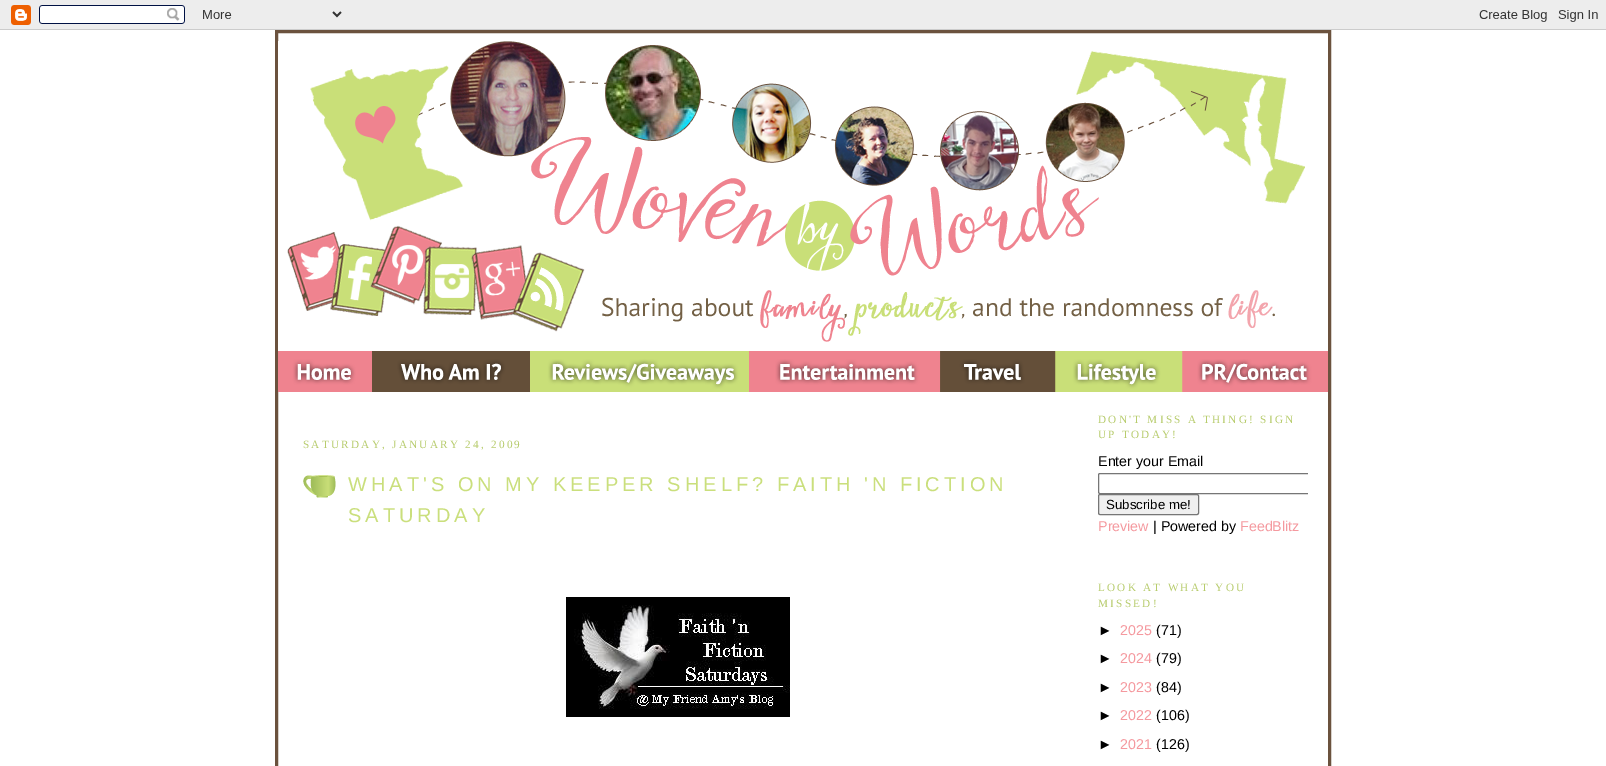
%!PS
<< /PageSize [1606 766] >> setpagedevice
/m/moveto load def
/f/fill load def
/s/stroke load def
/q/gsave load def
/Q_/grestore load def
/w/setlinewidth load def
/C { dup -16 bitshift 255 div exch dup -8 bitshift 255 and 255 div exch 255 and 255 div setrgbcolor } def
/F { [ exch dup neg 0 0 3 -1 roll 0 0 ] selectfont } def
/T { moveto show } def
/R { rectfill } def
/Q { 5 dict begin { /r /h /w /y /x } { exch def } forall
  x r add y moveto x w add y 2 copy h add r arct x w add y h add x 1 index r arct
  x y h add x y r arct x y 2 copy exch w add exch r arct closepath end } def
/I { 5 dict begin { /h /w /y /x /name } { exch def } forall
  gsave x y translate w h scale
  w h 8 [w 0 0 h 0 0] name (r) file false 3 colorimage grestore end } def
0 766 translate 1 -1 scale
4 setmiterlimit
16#FFFFFF C
0 0 1606 766 R
(1.rgb) 0 0 1606 30 I
16#6B523E C
3 w
276.5 31.5 1053 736 rectstroke
(2.rgb) 278 41 1050 351 I
/LiberationSerif-Regular 11.2 F
16#B7CC6C C
303 448 m 2.25 0 (SATURDAY, JANUARY 24, 2009) ashow
(3.rgb) 303 475 33 23 I
/LiberationSans-Regular 20 F
16#CADF7C C
348 491 m 4 0 (WHAT'S ON MY KEEPER SHELF? FAITH 'N FICTION) ashow
348 522 m 4 0 (SATURDAY) ashow
(4.rgb) 566 597 224 120 I
/LiberationSerif-Regular 11.2 F
16#B7CC6C C
1098 423 m 2.25 0 (DON'T MISS A THING! SIGN) ashow
1098 438 m 2.25 0 (UP TODAY!) ashow
/LiberationSans-Regular 14.25 F
16#000000 C
(Enter your Email) 1098 466 T
q
1098 395 210 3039 rectclip
16#767676 C
1 w
1098.5 473.5 264 20 1.5 Q s
Q_
16#EFEFEF C
1098.5 494.5 100 20 1.5 Q q f Q_
16#767676 C
1 w
s
/LiberationSans-Regular 13.25 F
16#000000 C
(Subscribe me!) 1106 509 T
/LiberationSans-Regular 14.25 F
16#F5999F C
(Preview) 1098 531 T
16#000000 C
(| Powered by) 1153 531 T
16#F5999F C
(FeedBlitz) 1240 531 T
/LiberationSerif-Regular 11.2 F
16#B7CC6C C
1098 591 m 2.25 0 (LOOK AT WHAT YOU) ashow
1098 607 m 2.25 0 (MISSED!) ashow
/LiberationSans-Regular 14.25 F
16#000000 C
(►) 1098 635 T
16#F5999F C
(2025) 1120 635 T
16#000000 C
(\(71\)) 1156 635 T
(►) 1098 663 T
16#F5999F C
(2024) 1120 663 T
16#000000 C
(\(79\)) 1156 663 T
(►) 1098 692 T
16#F5999F C
(2023) 1120 692 T
16#000000 C
(\(84\)) 1156 692 T
(►) 1098 720 T
16#F5999F C
(2022) 1120 720 T
16#000000 C
(\(106\)) 1156 720 T
(►) 1098 749 T
16#F5999F C
(2021) 1120 749 T
16#000000 C
(\(126\)) 1156 749 T
showpage
